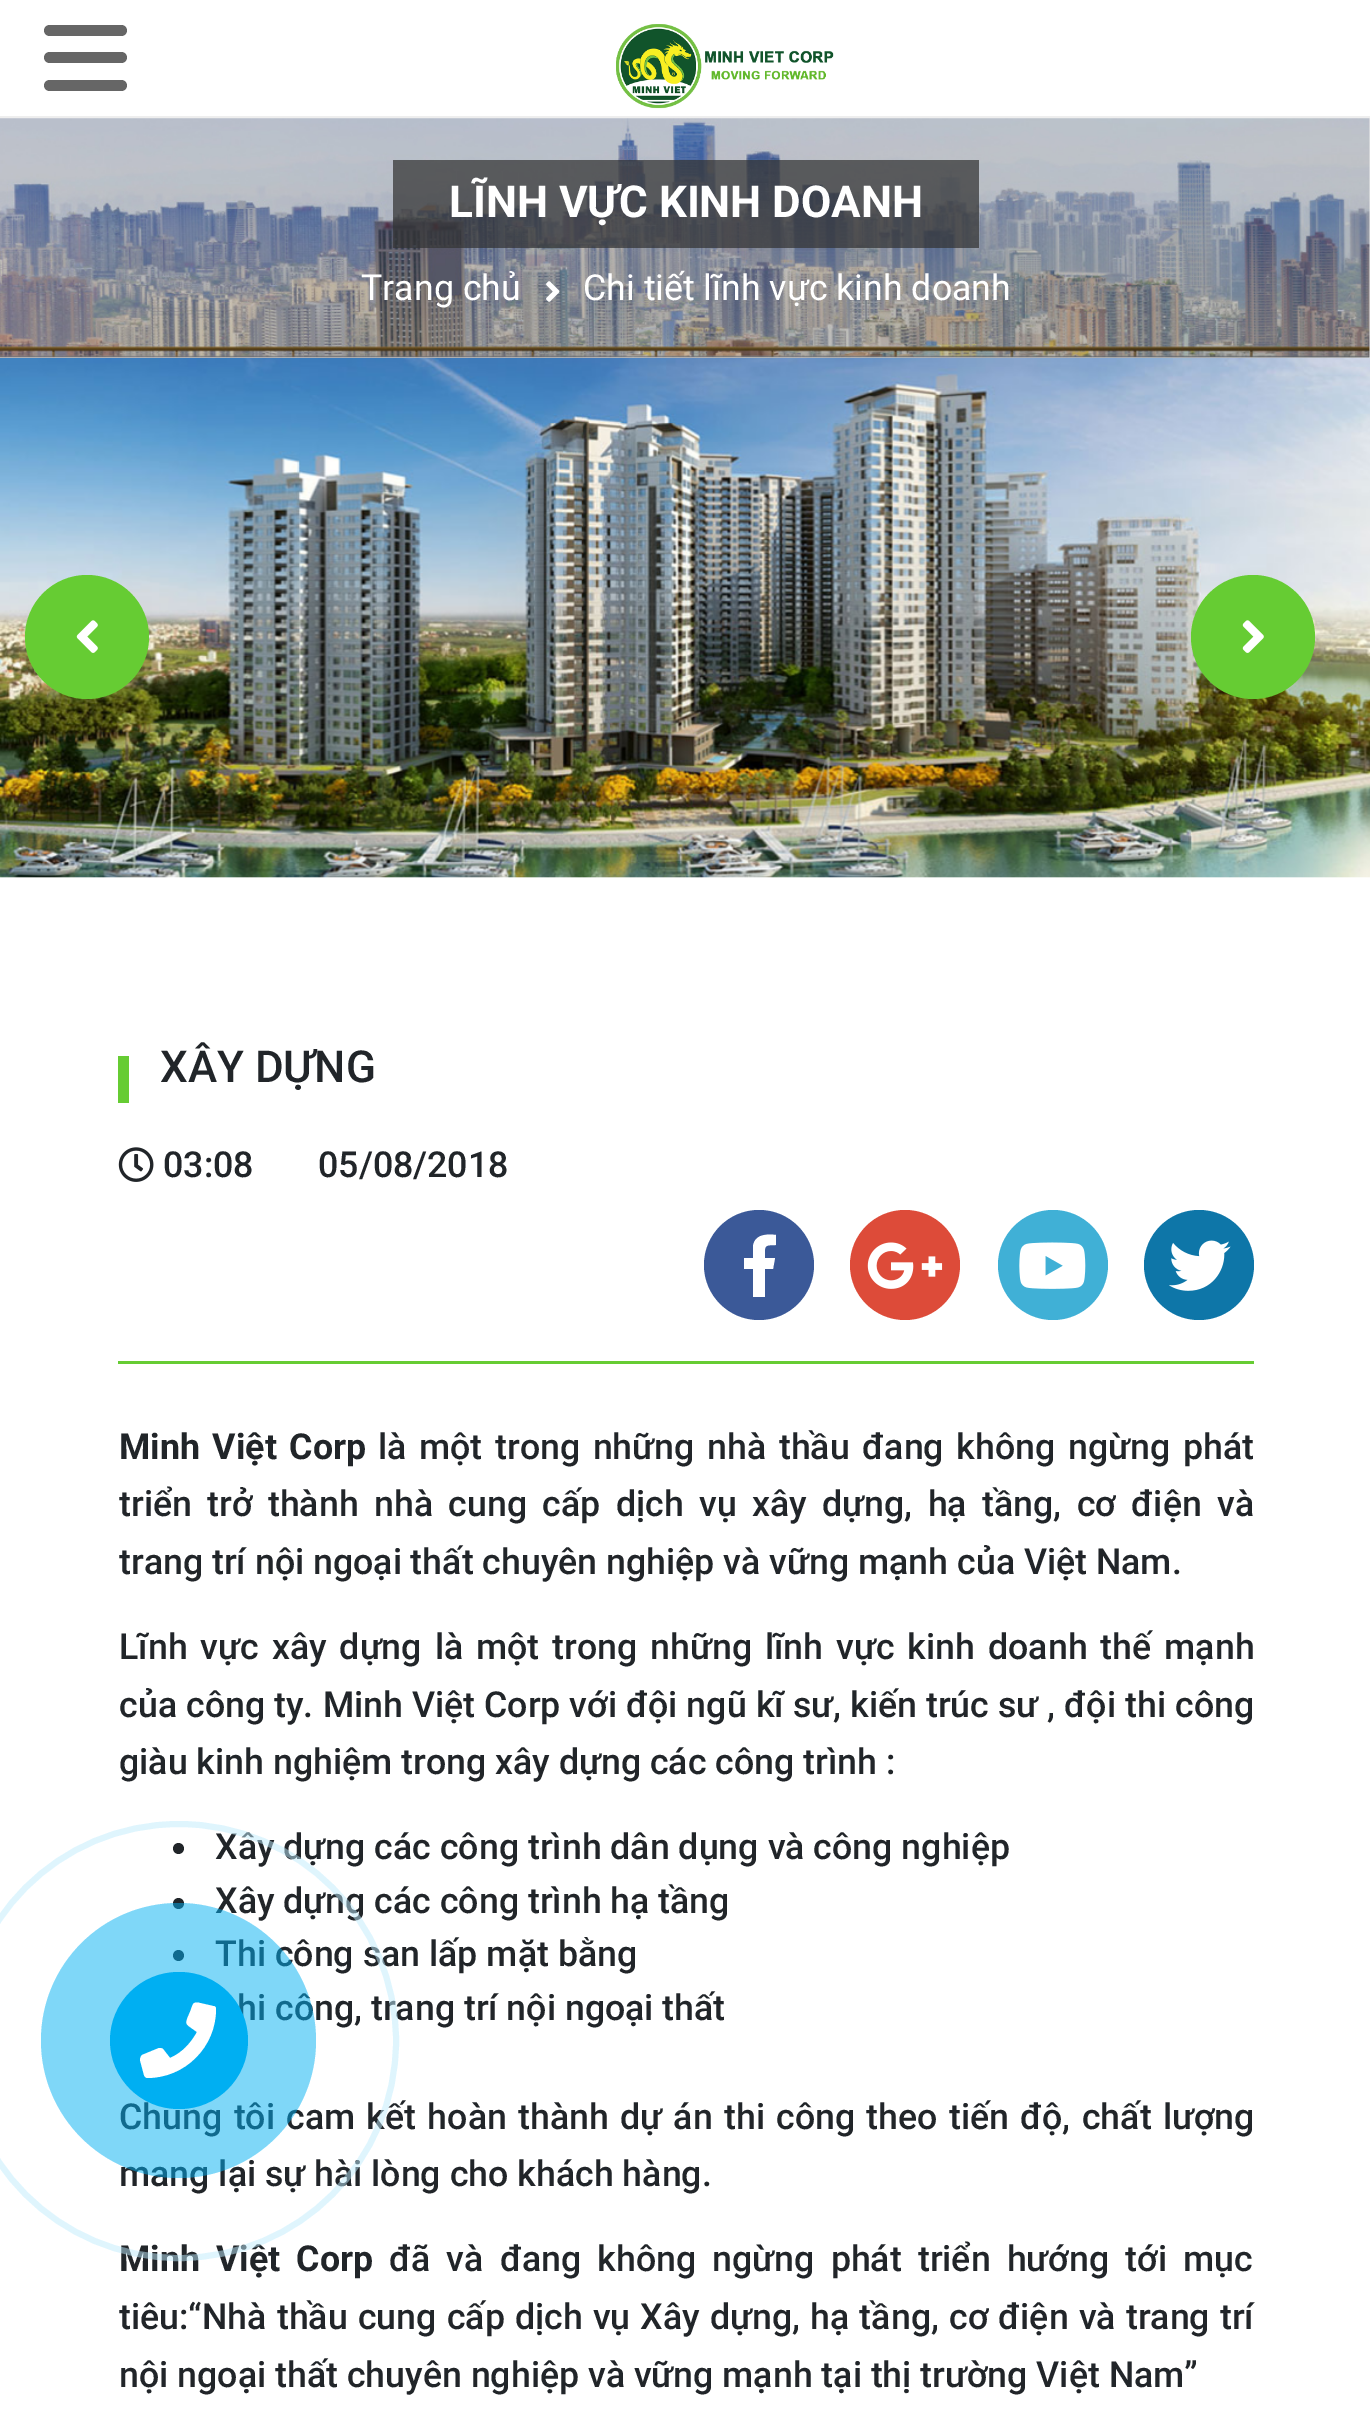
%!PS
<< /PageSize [1370 2435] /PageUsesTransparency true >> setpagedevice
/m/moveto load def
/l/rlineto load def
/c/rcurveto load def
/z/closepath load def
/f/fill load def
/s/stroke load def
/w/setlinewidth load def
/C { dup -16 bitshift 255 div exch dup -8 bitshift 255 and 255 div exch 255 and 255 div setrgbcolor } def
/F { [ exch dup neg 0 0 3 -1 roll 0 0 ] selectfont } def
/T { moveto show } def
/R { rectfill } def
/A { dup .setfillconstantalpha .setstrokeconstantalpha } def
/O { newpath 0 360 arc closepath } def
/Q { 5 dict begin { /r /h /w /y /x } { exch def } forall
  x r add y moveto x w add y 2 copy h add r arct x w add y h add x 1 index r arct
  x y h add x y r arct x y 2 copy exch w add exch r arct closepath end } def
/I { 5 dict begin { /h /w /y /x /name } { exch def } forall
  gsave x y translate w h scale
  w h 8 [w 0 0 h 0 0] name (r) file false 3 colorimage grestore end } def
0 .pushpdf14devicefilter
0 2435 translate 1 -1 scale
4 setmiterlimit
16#EEEEEE C
0 0 1370 2435 R
16#FFFFFF C
0 0 1370 116 R
16#666666 C
44 25 83 11 5.5 Q f
44 52 83 11 5.5 Q f
44 80 83 11 5.5 Q f
(1.rgb) 616 24 218 85 I
16#FFFFFF C
0 877 1370 1558 R
16#212529 C
178.5 1848.5 5.5 O f
/Roboto-Medium 35.75 F
(Xây dựng các công trình dân dụng và công nghiệp) 215 1859 T
178.5 1903.5 5.5 O f
(Xây dựng các công trình hạ tầng) 215 1913 T
178.5 1955.5 5.5 O f
(Thi công san lấp mặt bằng) 215 1966 T
(hi công, trang trí nội ngoại thất) 237 2020 T
119 2129 m 2.4 0 32 (Chúng tôi cam kết hoàn thành dự án thi công theo tiến độ, chất lượng) widthshow
(mang lại sự hài lòng cho khách hàng.) 119 2186 T
/Roboto-Bold 35.75 F
119 2271 m 7.25 0 32 (Minh Việt Corp) widthshow
/Roboto-Medium 35.75 F
389 2271 m 7.25 0 32 (đã và đang không ngừng phát triển hướng tới mục) widthshow
0.5 A
16#BFEBFC C
6 w
179 2041 217 O s
16#00AFF2 C
178.5 2040.5 137.5 O f
1 A
110 1972 138 137 68.5 Q f
16#FFFFFF C
213 2006 m -13 -3 l -8 -2 -7 2 -10 9 c -6 14 -5 11 7 20 c -6 11 -15 21 -27 26 c -7 -9 l -1 -1 -3 -1 -4 -1 c -17 7 l -1 1 -2 3 -2 5 c 4 15 l 0 1 2 3 3 3 c 38 0 69 -31 69 -69 c 0 -2 -1 -3 -3 -3 c z f
(2.rgb) 0 118 1370 240 I
0.72 A
16#333333 C
393 160 586 88 R
/Roboto-Bold 44 F
1 A
16#FFFFFF C
(LĨNH VỰC KINH DOANH) 449 217 T
/Roboto-Regular 35.75 F
(Trang chủ) 361 300 T
(3.rgb) 546 281 14 21 I
(Chi tiết lĩnh vực kinh doanh) 583 300 T
(4.rgb) 0 358 1370 520 I
16#66CC33 C
87 637 62 O f
(5.rgb) 76 620 22 33 I
1253 637 62 O f
(6.rgb) 1242 620 22 33 I
118 1056 11 47 R
/Roboto-Medium 44 F
16#212529 C
(XÂY DỰNG) 160 1082 T
16#66CC33 C
118 1361 1136 3 R
(7.rgb) 118 1147 36 35 I
/Roboto-Medium 35.75 F
16#212529 C
(03:08) 163 1177 T
(05/08/2018) 318 1177 T
16#3B5998 C
759 1265 55 O f
16#FFFFFF C
753 1297 m 0 -28 l -9 0 l 0 -11 l 9 0 l 0 -12 l 2 -12 14 -12 23 -11 c 0 10 l -13 0 -11 1 -11 13 c 10 0 l -2 11 l -8 0 l 0 28 l f
16#DD4B39 C
905 1265 55 O f
(8.rgb) 867 1242 76 47 I
16#40B0D6 C
1053 1265 55 O f
(9.rgb) 1019 1242 67 47 I
16#0E76A8 C
1199 1265 55 O f
(10.rgb) 1169 1240 62 51 I
/Roboto-Bold 35.75 F
16#212529 C
119 1459 m 3.75 0 32 (Minh Việt Corp) widthshow
/Roboto-Medium 35.75 F
378 1459 m 3.75 0 32 (là một trong những nhà thầu đang không ngừng phát) widthshow
119 1516 m 6.5 0 32 (triển trở thành nhà cung cấp dịch vụ xây dựng, hạ tầng, cơ điện và) widthshow
(trang trí nội ngoại thất chuyên nghiệp và vững mạnh của Việt Nam.) 119 1574 T
119 1659 m 4.1 0 32 (Lĩnh vực xây dựng là một trong những lĩnh vực kinh doanh thế mạnh) widthshow
119 1717 m .2 0 32 (của công ty. Minh Việt Corp với đội ngũ kĩ sư, kiến trúc sư , đội thi công) widthshow
(giàu kinh nghiệm trong xây dựng các công trình :) 119 1774 T
119 2329 m 1.25 0 32 (tiêu:“Nhà thầu cung cấp dịch vụ Xây dựng, hạ tầng, cơ điện và trang trí) widthshow
(nội ngoại thất chuyên nghiệp và vững mạnh tại thị trường Việt Nam”) 119 2387 T
.poppdf14devicefilter showpage
